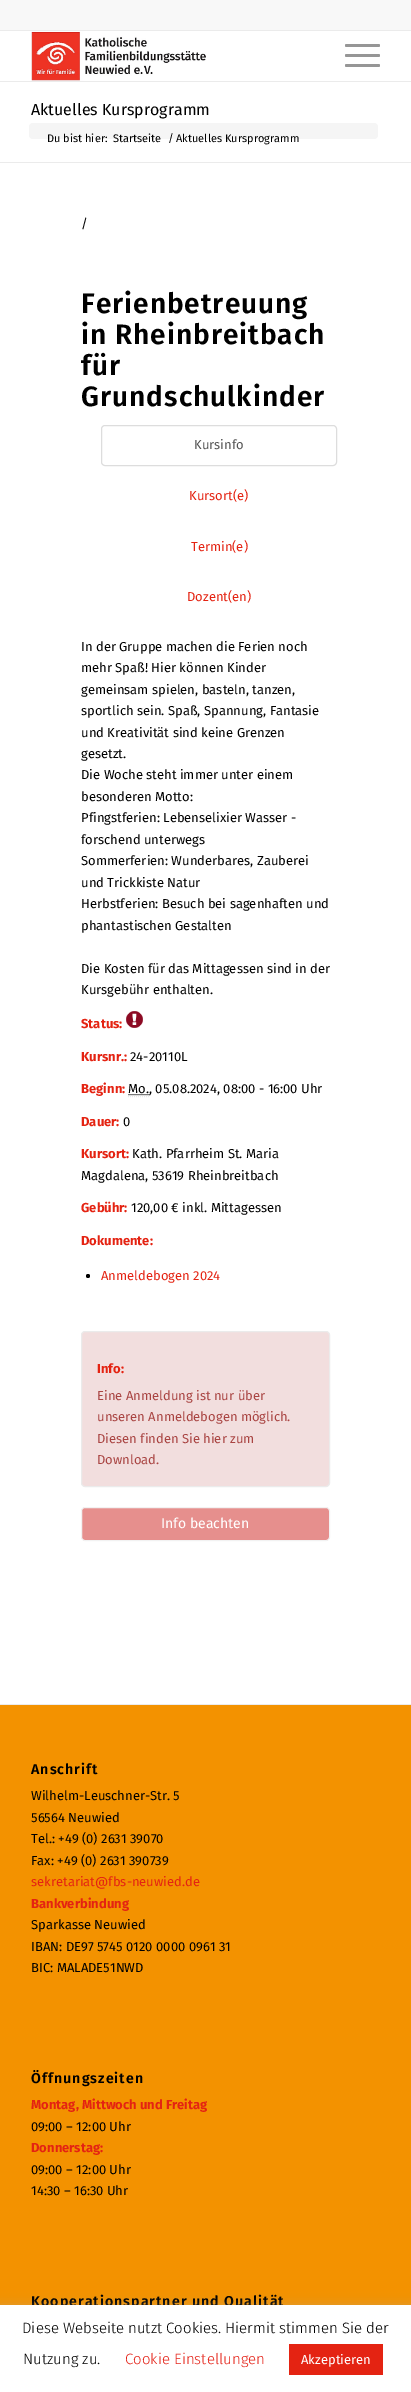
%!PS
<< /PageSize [411 2392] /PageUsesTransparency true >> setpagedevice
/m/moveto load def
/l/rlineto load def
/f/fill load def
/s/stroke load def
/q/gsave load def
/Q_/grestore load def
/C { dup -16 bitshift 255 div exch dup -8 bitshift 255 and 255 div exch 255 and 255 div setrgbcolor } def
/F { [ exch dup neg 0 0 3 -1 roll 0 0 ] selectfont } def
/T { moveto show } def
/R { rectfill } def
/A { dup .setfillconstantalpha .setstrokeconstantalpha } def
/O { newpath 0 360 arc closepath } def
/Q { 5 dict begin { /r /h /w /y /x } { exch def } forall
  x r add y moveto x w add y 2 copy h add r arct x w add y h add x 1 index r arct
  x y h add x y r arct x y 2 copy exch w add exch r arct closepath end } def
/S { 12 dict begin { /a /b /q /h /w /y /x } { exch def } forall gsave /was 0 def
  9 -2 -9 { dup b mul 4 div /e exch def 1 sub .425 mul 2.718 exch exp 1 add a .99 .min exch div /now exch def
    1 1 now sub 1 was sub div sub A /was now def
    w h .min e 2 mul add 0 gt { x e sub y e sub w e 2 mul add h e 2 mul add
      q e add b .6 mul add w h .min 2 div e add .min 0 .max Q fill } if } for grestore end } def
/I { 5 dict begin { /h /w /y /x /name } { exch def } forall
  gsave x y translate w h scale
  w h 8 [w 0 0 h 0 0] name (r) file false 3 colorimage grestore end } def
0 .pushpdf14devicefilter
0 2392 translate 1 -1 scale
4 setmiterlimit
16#FFFFFF C
0 0 411 2392 R
16#F8F8F8 C
0 0 411 30 R
16#EBEBEB C
0 30 411 1 R
0 81 411 1 R
(1.rgb) 31 31 175 50 I
16#969696 C
345 54 35 3 1.5 Q f
345 44 35 3 1.5 Q f
345 64 35 3 1.5 Q f
/FiraSans-Regular 16 F
16#000000 C
(Aktuelles Kursprogramm) 31 115 T
16#F5F5F5 C
29 123 349 16 4 Q f
/FiraSans-Regular 11 F
16#000000 C
(Du bist hier:) 47 142 T
(Startseite) 113 142 T
(/) 168 142 T
(Aktuelles Kursprogramm) 176 142 T
16#EBEBEB C
0 162 411 1 R
/FiraSans-Regular 13 F
16#000000 C
(/) 81 228 T
/FiraSans-SemiBold 28 F
81 313 m 1 0 (Ferienbetreuung) ashow
81 344 m 1 0 (in Rheinbreitbach) ashow
81 375 m 1 0 (für) ashow
81 406 m 1 0 (Grundschulkinder) ashow
16#DDDDDD C
101.5 425.5 235 40 3.5 Q s
/FiraSans-Regular 13 F
16#555555 C
(Kursinfo) 194 449 T
16#E42312 C
(Kursort\(e\)) 189 500 T
(Termin\(e\)) 191 551 T
(Dozent\(en\)) 187 601 T
16#000000 C
(In der Gruppe machen die Ferien noch) 81 651 T
(mehr Spaß! Hier können Kinder) 81 672 T
(gemeinsam spielen, basteln, tanzen,) 81 694 T
(sportlich sein. Spaß, Spannung, Fantasie) 81 715 T
(und Kreativität sind keine Grenzen) 81 737 T
(gesetzt.) 81 758 T
(Die Woche steht immer unter einem) 81 779 T
(besonderen Motto:) 81 801 T
(Pfingstferien: Lebenselixier Wasser -) 81 822 T
(forschend unterwegs) 81 844 T
(Sommerferien: Wunderbares, Zauberei) 81 865 T
(und Trickkiste Natur) 81 887 T
(Herbstferien: Besuch bei sagenhaften und) 81 908 T
(phantastischen Gestalten) 81 930 T
(Die Kosten für das Mittagessen sind in der) 81 973 T
(Kursgebühr enthalten.) 81 994 T
/FiraSans-Bold 13 F
16#E42312 C
(Status:) 81 1028 T
(2.rgb) 126 1011 17 17 I
(Kursnr.:) 81 1061 T
/FiraSans-Regular 13 F
16#000000 C
(24-20110L) 130 1061 T
/FiraSans-Bold 13 F
16#E42312 C
(Beginn:) 81 1093 T
16#000000 C
[1 1] 0 setdash
128.5 1094.5 m 21 0 l s
/FiraSans-Regular 13 F
(Mo., 05.08.2024, 08:00 - 16:00 Uhr) 128 1093 T
16#EBEBEB C
128 1096.5 m 21 0 l s
/FiraSans-Bold 13 F
16#E42312 C
(Dauer:) 81 1126 T
/FiraSans-Regular 13 F
16#000000 C
(0) 123 1126 T
/FiraSans-Bold 13 F
16#E42312 C
(Kursort:) 81 1158 T
/FiraSans-Regular 13 F
16#000000 C
(Kath. Pfarrheim St. Maria) 132 1158 T
(Magdalena, 53619 Rheinbreitbach) 81 1180 T
/FiraSans-Bold 13 F
16#E42312 C
(Gebühr:) 81 1212 T
/FiraSans-Regular 13 F
16#000000 C
(120,00 € inkl. Mittagessen) 131 1212 T
/FiraSans-Bold 13 F
16#E42312 C
(Dokumente:) 81 1245 T
16#000000 C
88 1276 2 O f
/FiraSans-Regular 13 F
16#E42312 C
(Anmeldebogen 2024) 101 1280 T
16#F2DEDE C
81.5 1331.5 248 155 3.5 Q q f Q_
16#EBEBEB C
[] 0 setdash
s
/FiraSans-Bold 13 F
16#E42312 C
(Info:) 97 1373 T
/FiraSans-Regular 13 F
16#A94442 C
(Eine Anmeldung ist nur über) 97 1400 T
(unseren Anmeldebogen möglich.) 97 1421 T
(Diesen finden Sie hier zum) 97 1443 T
(Download.) 97 1464 T
16#E68F8D C
81.5 1507.5 248 33 3.5 Q q f Q_
16#F2F2F2 C
s
/FiraSans-Regular 14 F
16#FFFFFF C
(Info beachten) 161 1528 T
16#F39200 C
0 1705 411 600 R
16#EBEBEB C
0 1704 411 1 R
/FiraSans-SemiBold 14.25 F
16#000000 C
31 1774 m 1 0 (Anschrift) ashow
/FiraSans-Regular 13 F
(Wilhelm-Leuschner-Str. 5) 31 1800 T
(56564 Neuwied) 31 1822 T
(Tel.: +49 \(0\) 2631 39070) 31 1843 T
(Fax: +49 \(0\) 2631 390739) 31 1865 T
16#E42312 C
(sekretariat@fbs-neuwied.de) 31 1886 T
/FiraSans-Bold 13 F
(Bankverbindung) 31 1908 T
/FiraSans-Regular 13 F
16#000000 C
(Sparkasse Neuwied) 31 1929 T
(IBAN: DE97 5745 0120 0000 0961 31) 31 1951 T
(BIC: MALADE51NWD) 31 1972 T
/FiraSans-SemiBold 14.25 F
31 2083 m 1 0 (Öffnungszeiten) ashow
/FiraSans-Bold 13 F
16#E42312 C
(Montag, Mittwoch und Freitag) 31 2109 T
/FiraSans-Regular 13 F
16#000000 C
(09:00 – 12:00 Uhr) 31 2131 T
/FiraSans-Bold 13 F
16#E42312 C
(Donnerstag:) 31 2152 T
/FiraSans-Regular 13 F
16#000000 C
(09:00 – 12:00 Uhr) 31 2174 T
(14:30 – 16:30 Uhr) 31 2195 T
/FiraSans-SemiBold 14.25 F
31 2306 m 1 0 (Kooperationspartner und Qualität) ashow
16#ACABAB C
0 2304 411 87 0 5 .3 S
16#FFFFFF C
0 2305 411 87 R
/FiraSans-Light 15 F
16#000000 C
(Diese Webseite nutzt Cookies. Hiermit stimmen Sie der) 22 2333 T
(Nutzung zu.) 23 2364 T
16#E42319 C
(Cookie Einstellungen) 125 2364 T
16#E42312 C
289 2344 94 31 R
/FiraSans-Regular 13 F
16#FFFFFF C
(Akzeptieren) 301 2364 T
.poppdf14devicefilter showpage
